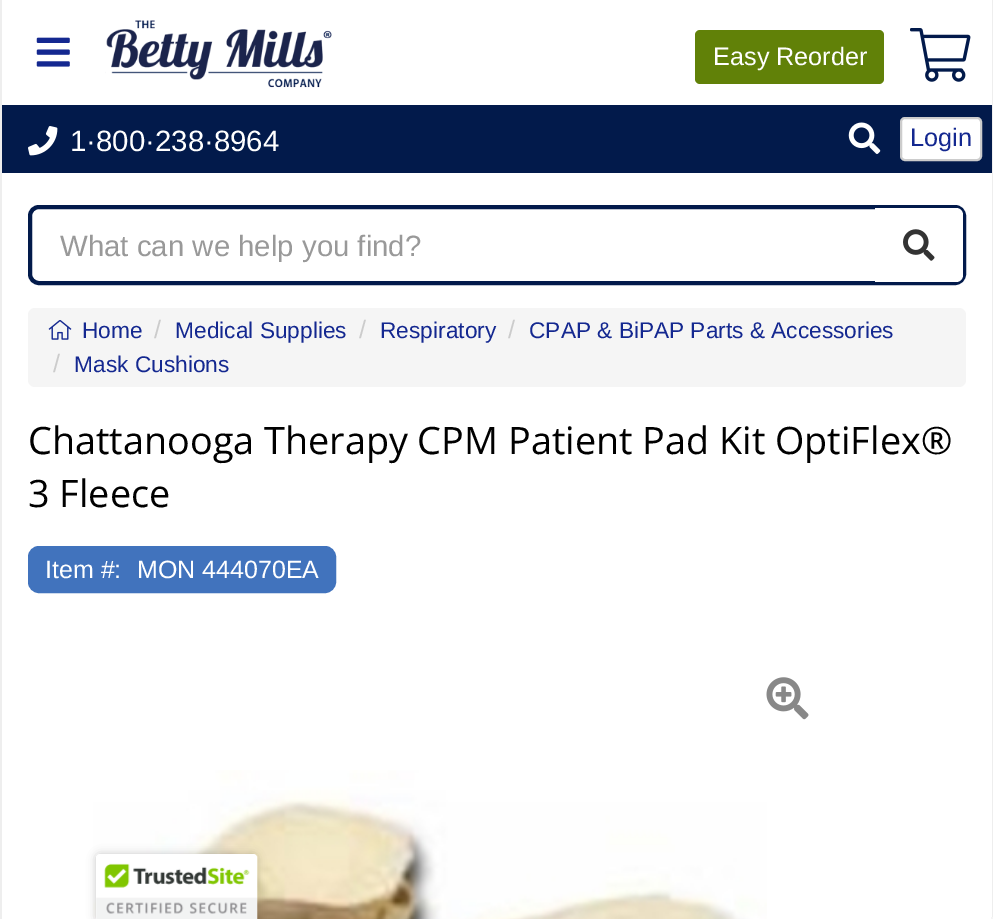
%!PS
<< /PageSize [993 919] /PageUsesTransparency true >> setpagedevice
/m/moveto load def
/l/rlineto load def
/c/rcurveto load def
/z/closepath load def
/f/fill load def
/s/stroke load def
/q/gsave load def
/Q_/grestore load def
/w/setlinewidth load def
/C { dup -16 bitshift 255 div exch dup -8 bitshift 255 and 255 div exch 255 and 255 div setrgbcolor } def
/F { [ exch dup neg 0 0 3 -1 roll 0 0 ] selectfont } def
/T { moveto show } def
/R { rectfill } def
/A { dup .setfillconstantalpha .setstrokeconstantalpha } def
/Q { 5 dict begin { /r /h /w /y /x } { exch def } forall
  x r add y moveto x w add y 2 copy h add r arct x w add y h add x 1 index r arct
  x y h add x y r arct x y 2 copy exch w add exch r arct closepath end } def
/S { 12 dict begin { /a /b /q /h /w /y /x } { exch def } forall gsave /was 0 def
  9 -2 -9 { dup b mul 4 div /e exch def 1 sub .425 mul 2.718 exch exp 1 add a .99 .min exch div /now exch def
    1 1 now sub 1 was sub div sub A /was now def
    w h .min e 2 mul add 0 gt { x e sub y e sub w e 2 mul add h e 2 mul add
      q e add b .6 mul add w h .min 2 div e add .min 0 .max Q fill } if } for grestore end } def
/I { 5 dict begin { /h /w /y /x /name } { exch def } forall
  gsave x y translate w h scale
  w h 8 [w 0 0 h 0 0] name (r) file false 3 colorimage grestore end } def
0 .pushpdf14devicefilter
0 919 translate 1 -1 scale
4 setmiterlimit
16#FFFFFF C
0 0 993 919 R
16#EEEEEE C
992 0 1 919 R
0 0 2 919 R
(1.rgb) 36 37 34 30 I
(2.rgb) 105 20 227 68 I
16#618108 C
695 30 189 54 5 Q f
/LiberationSans-Regular 25.25 F
16#FFFFFF C
(Easy Reorder) 713 65 T
(3.rgb) 910 28 61 54 I
16#021A4B C
2 105 990 68 R
(4.rgb) 28 126 30 30 I
/LiberationSans-Regular 29.4 F
16#FFFFFF C
(1·800·238·8964) 70 151 T
(5.rgb) 848 122 33 32 I
901 118 80 42 4 Q q f Q_
16#CCCCCC C
2 w
s
/LiberationSans-Regular 25.25 F
16#142890 C
(Login) 910 146 T
16#021A4B C
4 w
30 207 934 76 9 Q s
/LiberationSans-Regular 29.4 F
16#999999 C
(What can we help you find?) 60 256 T
16#FFFFFF C
875 208 m 81 0 l 4 0 7 3 7 7 c 0 60 l 0 4 -3 7 -7 7 c -81 0 l z f
(6.rgb) 903 229 32 32 I
16#F5F5F5 C
28 308 938 79 7 Q f
(7.rgb) 48 320 24 20 I
/LiberationSans-Regular 22.7 F
16#142890 C
(Home) 82 338 T
/LiberationSans-Regular 25.25 F
16#CCCCCC C
(/) 154 338 T
/LiberationSans-Regular 22.7 F
16#142890 C
(Medical Supplies) 175 338 T
/LiberationSans-Regular 25.25 F
16#CCCCCC C
(/) 359 338 T
/LiberationSans-Regular 22.7 F
16#142890 C
(Respiratory) 380 338 T
/LiberationSans-Regular 25.25 F
16#CCCCCC C
(/) 508 338 T
/LiberationSans-Regular 22.7 F
16#142890 C
(CPAP & BiPAP Parts & Accessories) 529 338 T
/LiberationSans-Regular 25.25 F
16#CCCCCC C
(/) 53 372 T
/LiberationSans-Regular 22.7 F
16#142890 C
(Mask Cushions) 74 372 T
/OpenSans-Regular 37.8 F
16#000000 C
(Chattanooga Therapy CPM Patient Pad Kit OptiFlex®) 28 454 T
(3 Fleece) 28 507 T
16#4173BD C
29 547 306 45 10 Q q f Q_
2 w
s
/LiberationSans-Regular 25 F
16#FFFFFF C
(Item #:) 45 578 T
(MON 444070EA) 137 578 T
(8.rgb) 766 677 43 43 I
(9.rgb) 93 770 674 149 I
16#000000 C
96 854 161 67 4 4.5 .2 S
16#FFFFFF C
100 854 m 153 0 l 2 0 4 2 4 4 c 0 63 l -161 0 l 0 -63 l 0 -2 2 -4 4 -4 c z f
(10.rgb) 96 854 162 65 I
16#F5F5F5 C
991 917 2 2 R
.poppdf14devicefilter showpage
